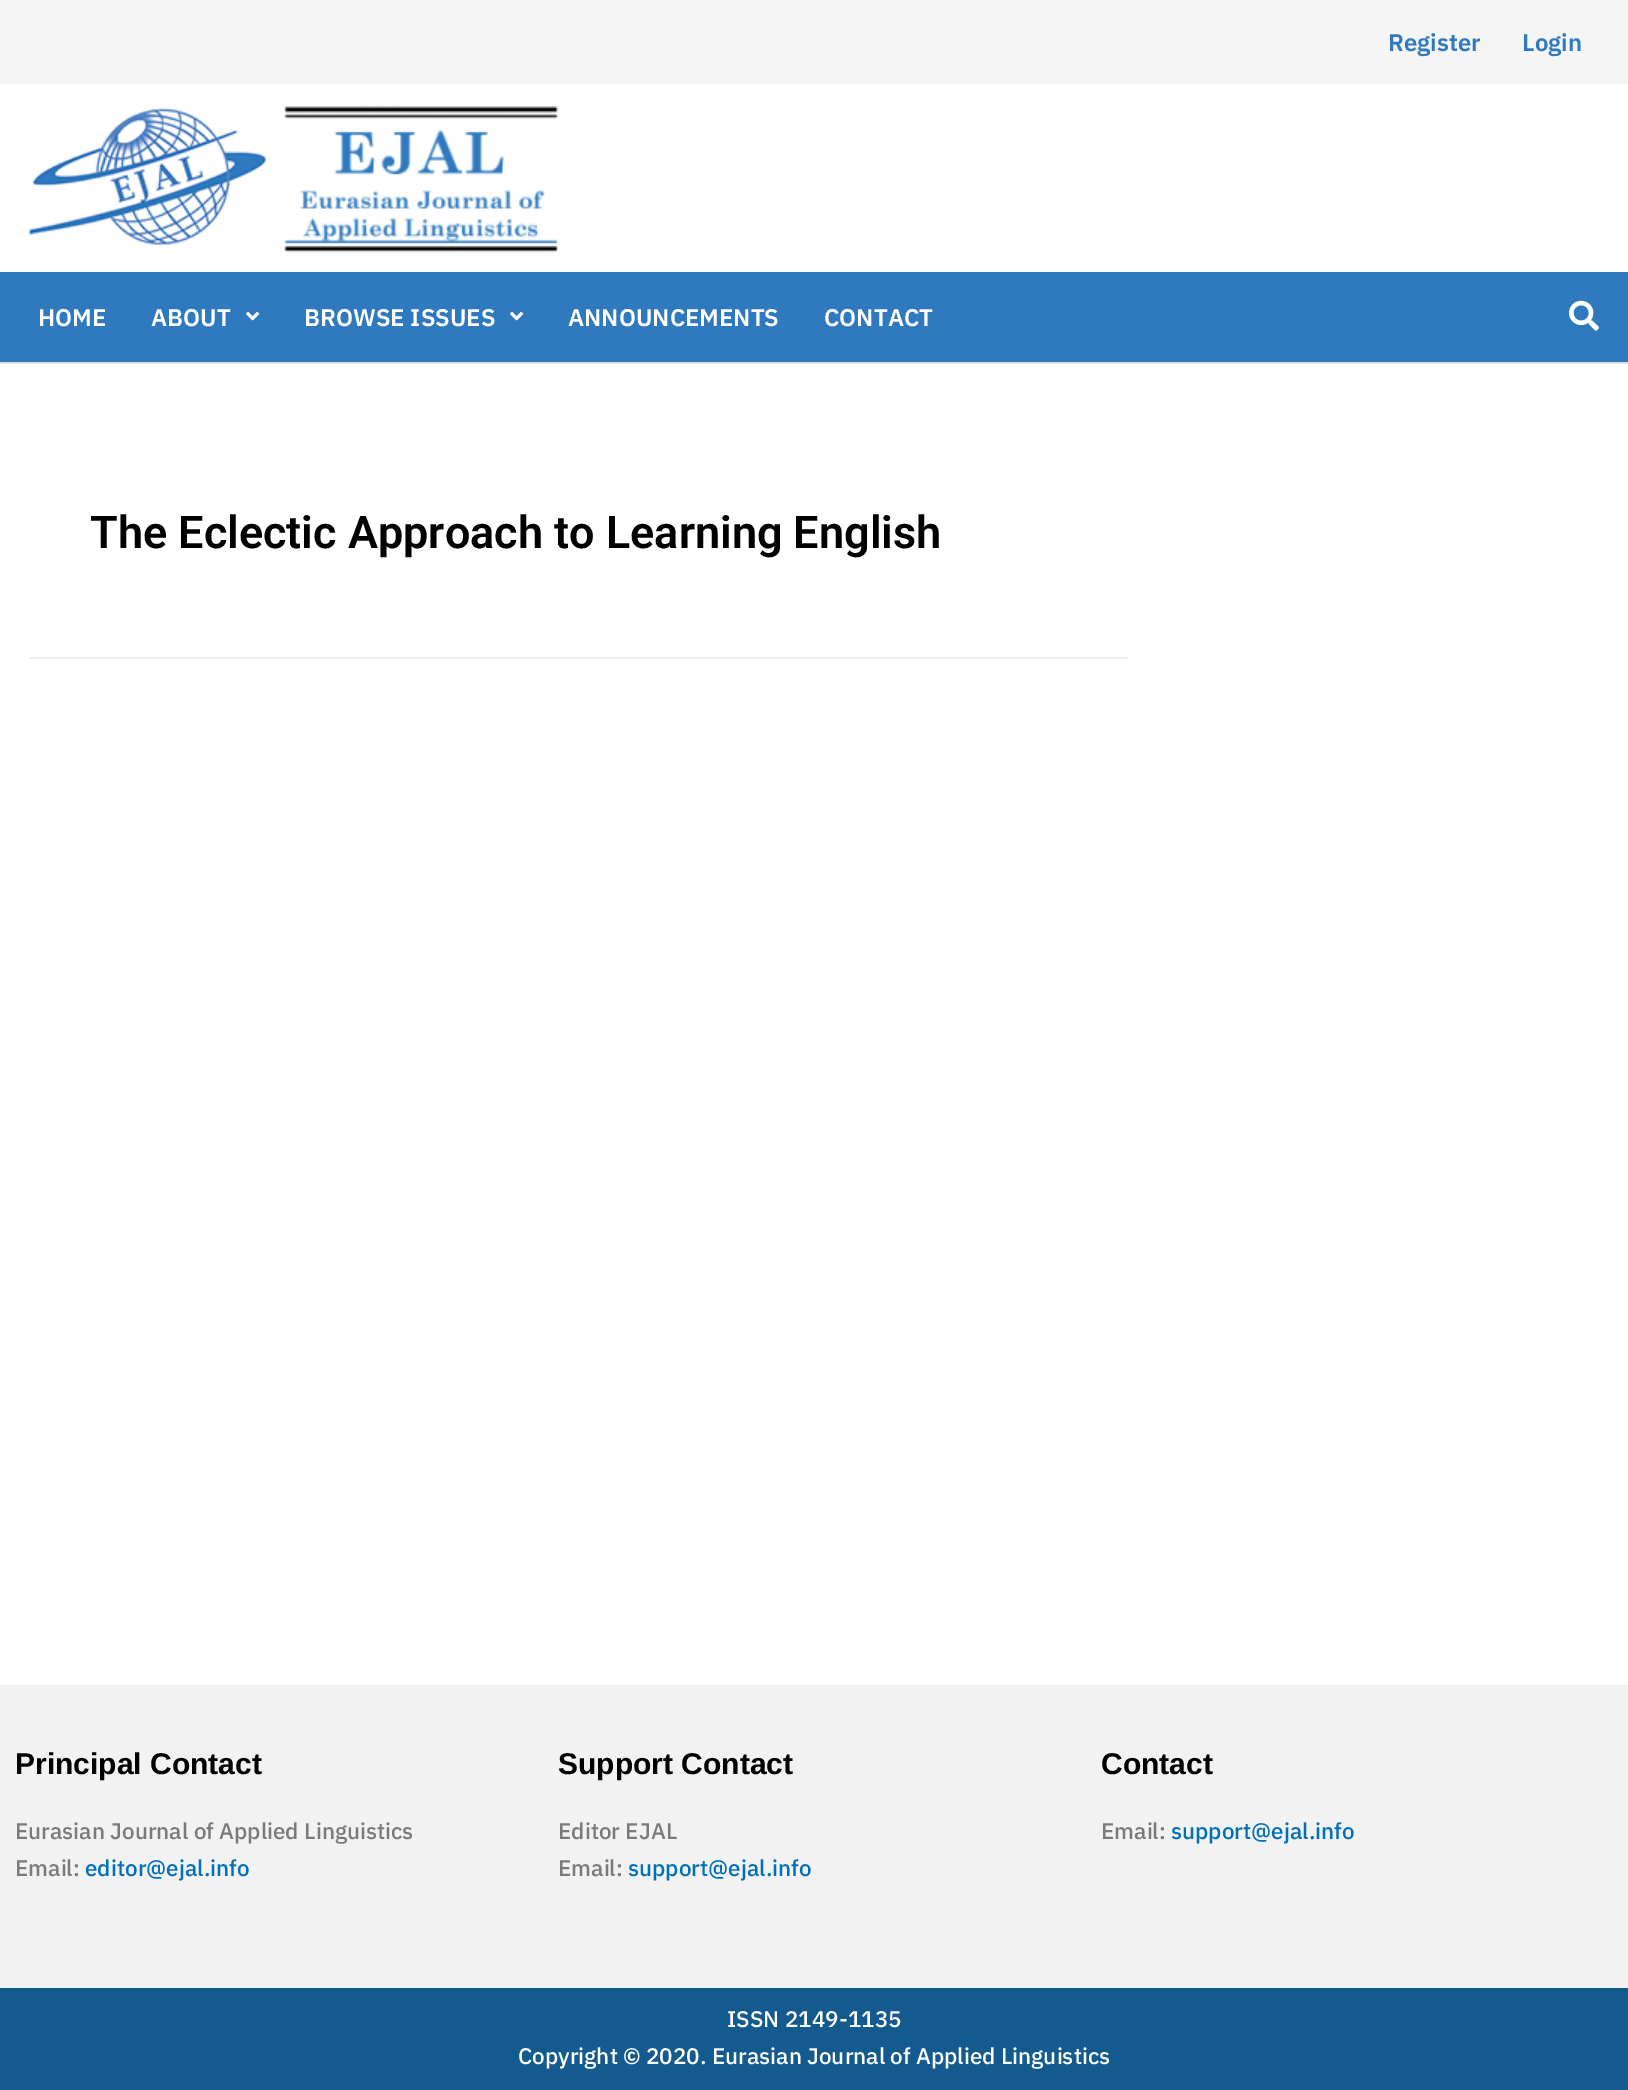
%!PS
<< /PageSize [1628 2090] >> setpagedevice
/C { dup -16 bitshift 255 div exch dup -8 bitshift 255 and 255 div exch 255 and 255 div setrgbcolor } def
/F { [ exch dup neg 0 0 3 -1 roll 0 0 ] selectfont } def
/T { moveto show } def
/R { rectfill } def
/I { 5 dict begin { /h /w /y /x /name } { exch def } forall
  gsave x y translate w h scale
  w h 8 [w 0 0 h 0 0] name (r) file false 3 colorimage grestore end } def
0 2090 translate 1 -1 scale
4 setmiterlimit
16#FFFFFF C
0 0 1628 2090 R
16#F5F5F5 C
0 0 1628 84 R
/IBMPlexSans-SemiBold 24 F
16#2F7ABF C
(Register) 1388 51 T
(Login) 1522 51 T
(1.rgb) 28 106 531 147 I
0 272 1628 90 R
16#DDDDDD C
0 362 1628 2 R
16#FFFFFF C
(HOME) 38 326 T
(ABOUT) 151 326 T
(2.rgb) 246 311 14 10 I
(BROWSE ISSUES) 304 326 T
(2.rgb) 510 311 14 10 I
(ANNOUNCEMENTS) 568 326 T
(CONTACT) 824 326 T
(3.rgb) 1569 300 30 31 I
16#EEEEEE C
30 657 1098 2 R
/Roboto-SemiBold 45 F
16#000000 C
(The Eclectic Approach to Learning English) 90 548 T
16#F2F2F2 C
0 1685 1628 303 R
/LiberationSans-Bold 30 F
16#000000 C
(Principal Contact) 15 1774 T
/IBMPlexSans-Medium 22.5 F
16#7A7A7A C
(Eurasian Journal of Applied Linguistics) 15 1839 T
(Email:) 15 1876 T
16#0170B9 C
(editor@ejal.info) 85 1876 T
/LiberationSans-Bold 30 F
16#000000 C
(Support Contact) 558 1774 T
/IBMPlexSans-Medium 22.5 F
16#7A7A7A C
(Editor EJAL) 558 1839 T
(Email:) 558 1876 T
16#0170B9 C
(support@ejal.info) 628 1876 T
/LiberationSans-Bold 30 F
16#000000 C
(Contact) 1101 1774 T
/IBMPlexSans-Medium 22.5 F
16#7A7A7A C
(Email:) 1101 1839 T
16#0170B9 C
(support@ejal.info) 1171 1839 T
16#135A8E C
0 1988 1628 102 R
16#FFFFFF C
(ISSN 2149-1135) 727 2027 T
(Copyright © 2020. Eurasian Journal of Applied Linguistics) 518 2064 T
showpage
